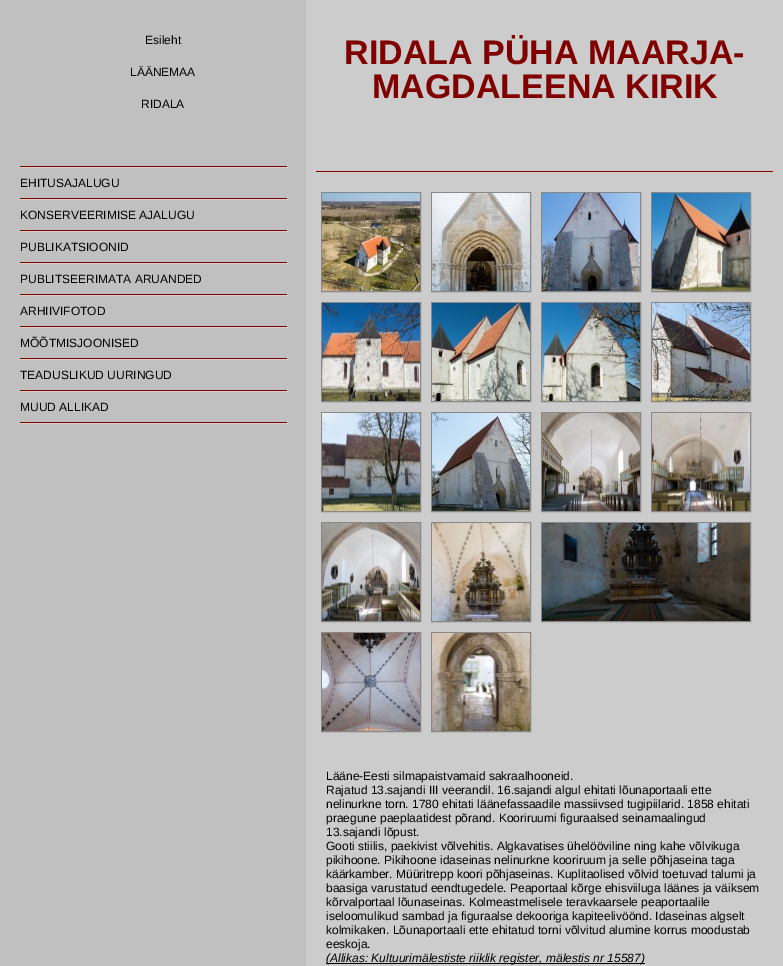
%!PS
<< /PageSize [783 966] >> setpagedevice
/C { dup -16 bitshift 255 div exch dup -8 bitshift 255 and 255 div exch 255 and 255 div setrgbcolor } def
/F { [ exch dup neg 0 0 3 -1 roll 0 0 ] selectfont } def
/T { moveto show } def
/R { rectfill } def
/I { 5 dict begin { /h /w /y /x /name } { exch def } forall
  gsave x y translate w h scale
  w h 8 [w 0 0 h 0 0] name (r) file false 3 colorimage grestore end } def
0 966 translate 1 -1 scale
4 setmiterlimit
16#CCCCCC C
0 0 783 966 R
16#C0C0C0 C
0 0 306 966 R
/LiberationSans-Regular 12 F
16#000000 C
(Esileht) 145 44 T
(LÄÄNEMAA) 130 76 T
(RIDALA) 141 108 T
16#800000 C
20 166 267 1 R
16#D4D0C8 C
20 167 267 1 R
16#800000 C
20 198 267 1 R
16#000000 C
(EHITUSAJALUGU) 20 187 T
16#D4D0C8 C
20 199 267 1 R
16#800000 C
20 230 267 1 R
16#000000 C
(KONSERVEERIMISE AJALUGU) 20 219 T
16#D4D0C8 C
20 231 267 1 R
16#800000 C
20 262 267 1 R
16#000000 C
(PUBLIKATSIOONID) 20 251 T
16#D4D0C8 C
20 263 267 1 R
16#800000 C
20 294 267 1 R
16#000000 C
(PUBLITSEERIMATA ARUANDED) 20 283 T
16#D4D0C8 C
20 295 267 1 R
16#800000 C
20 326 267 1 R
16#000000 C
(ARHIIVIFOTOD) 20 315 T
16#D4D0C8 C
20 327 267 1 R
16#800000 C
20 358 267 1 R
16#000000 C
(MÕÕTMISJOONISED) 20 347 T
16#D4D0C8 C
20 359 267 1 R
16#800000 C
20 390 267 1 R
16#000000 C
(TEADUSLIKUD UURINGUD) 20 379 T
16#D4D0C8 C
20 423 267 1 R
20 391 267 1 R
16#800000 C
20 422 267 1 R
16#000000 C
(MUUD ALLIKAD) 20 411 T
/LiberationSans-Bold 34 F
16#800000 C
(RIDALA PÜHA MAARJA-) 344 64 T
(MAGDALEENA KIRIK) 372 98 T
316 171 457 1 R
16#D4D0C8 C
316 172 457 1 R
16#888888 C
321.5 192.5 99 99 rectstroke
(1.rgb) 322 193 98 98 I
431.5 192.5 99 99 rectstroke
(2.rgb) 432 193 98 98 I
541.5 192.5 99 99 rectstroke
(3.rgb) 542 193 98 98 I
651.5 192.5 99 99 rectstroke
(4.rgb) 652 193 98 98 I
321.5 302.5 99 99 rectstroke
(5.rgb) 322 303 98 98 I
431.5 302.5 99 99 rectstroke
(6.rgb) 432 303 98 98 I
541.5 302.5 99 99 rectstroke
(7.rgb) 542 303 98 98 I
651.5 302.5 99 99 rectstroke
(8.rgb) 652 303 98 98 I
321.5 412.5 99 99 rectstroke
(9.rgb) 322 413 98 98 I
431.5 412.5 99 99 rectstroke
(10.rgb) 432 413 98 98 I
541.5 412.5 99 99 rectstroke
(11.rgb) 542 413 98 98 I
651.5 412.5 99 99 rectstroke
(12.rgb) 652 413 98 98 I
321.5 522.5 99 99 rectstroke
(13.rgb) 322 523 98 98 I
431.5 522.5 99 99 rectstroke
(14.rgb) 432 523 98 98 I
541.5 522.5 209 99 rectstroke
(15.rgb) 542 523 208 98 I
321.5 632.5 99 99 rectstroke
(16.rgb) 322 633 98 98 I
431.5 632.5 99 99 rectstroke
(17.rgb) 432 633 98 98 I
/LiberationSans-Regular 12 F
16#000000 C
(Lääne-Eesti silmapaistvamaid sakraalhooneid.) 326 780 T
(Rajatud 13.sajandi III veerandil. 16.sajandi algul ehitati lõunaportaali ette) 326 794 T
(nelinurkne torn. 1780 ehitati läänefassaadile massiivsed tugipiilarid. 1858 ehitati) 326 808 T
(praegune paeplaatidest põrand. Kooriruumi figuraalsed seinamaalingud) 326 822 T
(13.sajandi lõpust.) 326 836 T
(Gooti stiilis, paekivist võlvehitis. Algkavatises ühelööviline ning kahe võlvikuga) 326 850 T
(pikihoone. Pikihoone idaseinas nelinurkne kooriruum ja selle põhjaseina taga) 326 864 T
(käärkamber. Müüritrepp koori põhjaseinas. Kuplitaolised võlvid toetuvad talumi ja) 326 878 T
(baasiga varustatud eendtugedele. Peaportaal kõrge ehisviiluga läänes ja väiksem) 326 892 T
(kõrvalportaal lõunaseinas. Kolmeastmelisele teravkaarsele peaportaalile) 326 906 T
(iseloomulikud sambad ja figuraalse dekooriga kapiteelivöönd. Idaseinas algselt) 326 920 T
(kolmikaken. Lõunaportaali ette ehitatud torni võlvitud alumine korrus moodustab) 326 934 T
(eeskoja.) 326 948 T
326 963 319 1 R
/LiberationSans-Italic 12 F
(\(Allikas: Kultuurimälestiste riiklik register, mälestis nr 15587\)) 326 962 T
showpage
